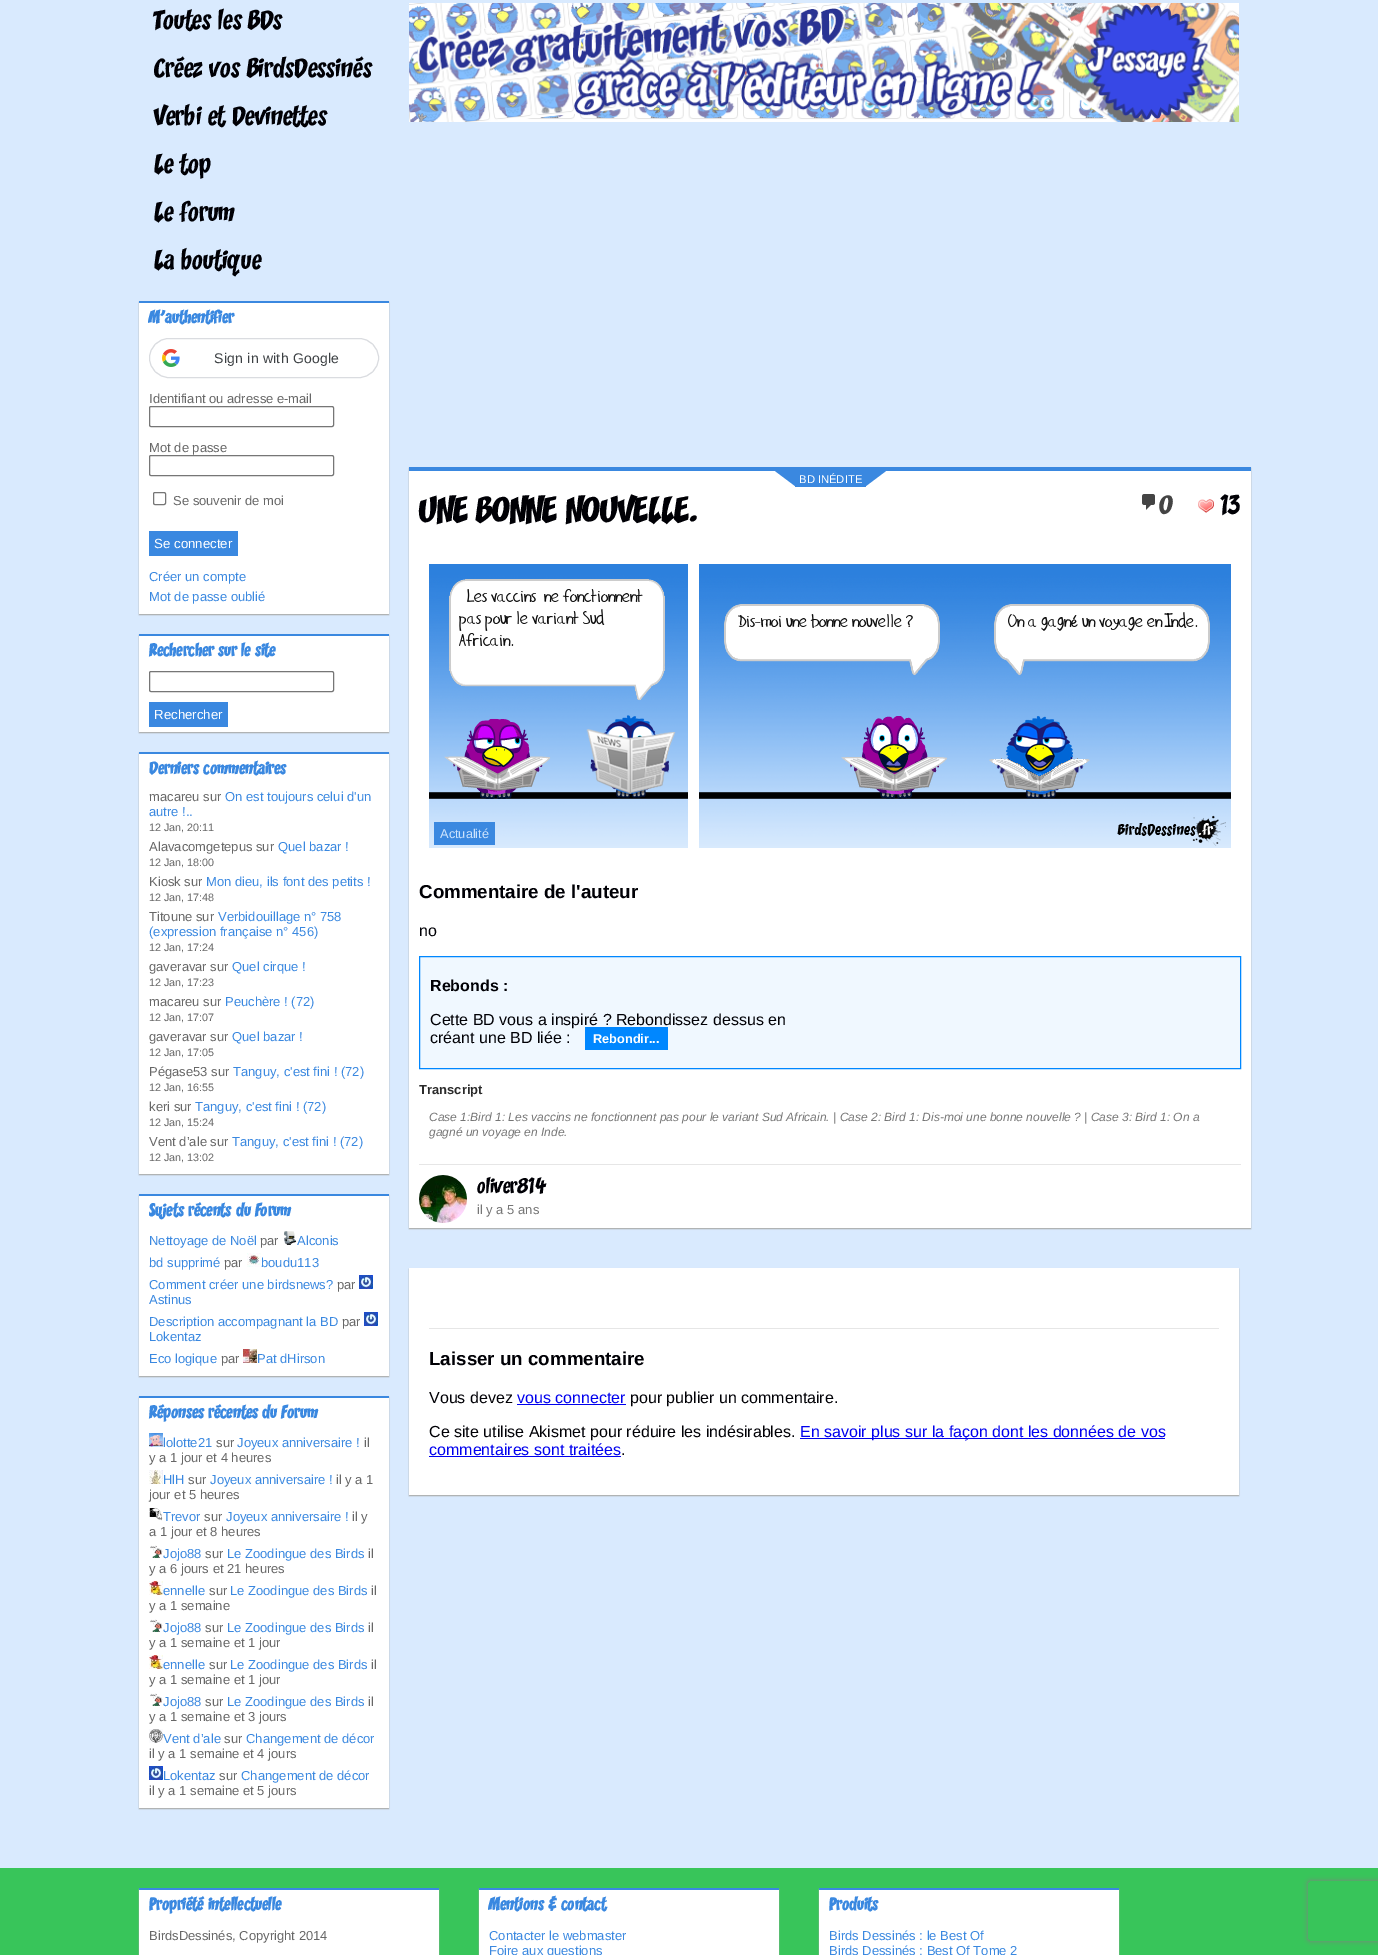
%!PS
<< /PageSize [1378 1955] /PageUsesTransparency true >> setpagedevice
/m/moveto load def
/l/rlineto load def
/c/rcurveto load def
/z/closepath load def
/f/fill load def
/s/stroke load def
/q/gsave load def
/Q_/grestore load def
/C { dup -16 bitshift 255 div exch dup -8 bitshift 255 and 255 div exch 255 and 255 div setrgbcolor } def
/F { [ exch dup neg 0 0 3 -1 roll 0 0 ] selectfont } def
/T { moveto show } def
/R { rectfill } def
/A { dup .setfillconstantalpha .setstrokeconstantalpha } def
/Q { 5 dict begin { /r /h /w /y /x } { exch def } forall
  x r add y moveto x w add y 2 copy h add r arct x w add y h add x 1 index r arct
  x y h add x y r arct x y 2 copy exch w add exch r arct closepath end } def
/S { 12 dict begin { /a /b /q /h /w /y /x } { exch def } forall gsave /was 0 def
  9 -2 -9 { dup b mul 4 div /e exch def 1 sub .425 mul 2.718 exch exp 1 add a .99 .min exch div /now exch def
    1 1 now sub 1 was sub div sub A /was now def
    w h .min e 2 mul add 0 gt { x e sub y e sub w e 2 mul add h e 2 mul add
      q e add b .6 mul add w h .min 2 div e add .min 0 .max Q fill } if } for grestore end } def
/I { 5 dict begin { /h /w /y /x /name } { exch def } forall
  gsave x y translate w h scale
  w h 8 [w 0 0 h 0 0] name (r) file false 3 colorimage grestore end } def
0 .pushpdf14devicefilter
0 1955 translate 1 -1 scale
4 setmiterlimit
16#D9EAFE C
0 0 1378 1955 R
/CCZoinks-Regular 24 F
16#000005 C
(Toutes les BDs) 154 29 T
(Créez vos BirdsDessinés) 154 77 T
(Verbi et Devinettes) 154 125 T
(Le top) 154 173 T
(Le forum) 154 221 T
(La boutique) 154 269 T
16#AAAAAA C
139 302 250 313 0 .5 1 S
16#FFFFFF C
139 303 250 311 R
16#3A88E0 C
139 301 250 2 R
/CCZoinks-Bold 15.6 F
(M'authentifier) 149 323 T
16#DADCE0 C
149.5 338.5 229 39 19.5 Q s
(1.rgb) 162 349 18 18 I
/LiberationSans-Regular 14 F
16#3C4043 C
214 363 m .25 0 (Sign in with Google) ashow
/LiberationSans-Regular 13 F
16#676767 C
(Identifiant ou adresse e-mail) 149 403 T
16#767676 C
149.5 406.5 184 20 1.5 Q s
16#676767 C
(Mot de passe) 149 452 T
16#767676 C
149.5 455.5 184 20 1.5 Q s
153.5 492.5 12 12 1.5 Q s
16#676767 C
(Se souvenir de moi) 173 505 T
16#3A88E0 C
149 531 89 25 R
/LiberationSans-Regular 13.25 F
16#FFFFFF C
(Se connecter) 154 548 T
/LiberationSans-Regular 13 F
16#3A88E0 C
(Créer un compte) 149 581 T
(Mot de passe oublié) 149 601 T
16#AAAAAA C
139 635 250 98 0 .5 1 S
16#FFFFFF C
139 636 250 96 R
16#3A88E0 C
139 634 250 2 R
/CCZoinks-Bold 15.6 F
(Rechercher sur le site) 149 656 T
16#767676 C
149.5 671.5 184 20 1.5 Q s
16#3A88E0 C
149 702 79 25 R
/LiberationSans-Regular 13.25 F
16#FFFFFF C
(Rechercher) 154 719 T
16#AAAAAA C
139 753 250 422 0 .5 1 S
16#FFFFFF C
139 754 250 420 R
16#3A88E0 C
139 752 250 2 R
/CCZoinks-Bold 15.6 F
(Derniers commentaires) 149 774 T
/LiberationSans-Regular 13 F
16#676767 C
(macareu sur) 149 801 T
16#3A88E0 C
(On est toujours celui d'un) 225 801 T
(autre !..) 149 816 T
/LiberationSans-Regular 10.75 F
16#676767 C
(12 Jan, 20:11) 149 831 T
/LiberationSans-Regular 13 F
(Alavacomgetepus sur) 149 851 T
16#3A88E0 C
(Quel bazar !) 278 851 T
/LiberationSans-Regular 10.75 F
16#676767 C
(12 Jan, 18:00) 149 866 T
/LiberationSans-Regular 13 F
(Kiosk sur) 149 886 T
16#3A88E0 C
(Mon dieu, ils font des petits !) 206 886 T
/LiberationSans-Regular 10.75 F
16#676767 C
(12 Jan, 17:48) 149 901 T
/LiberationSans-Regular 13 F
(Titoune sur) 149 921 T
16#3A88E0 C
(Verbidouillage n° 758) 218 921 T
(\(expression française n° 456\)) 149 936 T
/LiberationSans-Regular 10.75 F
16#676767 C
(12 Jan, 17:24) 149 951 T
/LiberationSans-Regular 13 F
(gaveravar sur) 149 971 T
16#3A88E0 C
(Quel cirque !) 232 971 T
/LiberationSans-Regular 10.75 F
16#676767 C
(12 Jan, 17:23) 149 986 T
/LiberationSans-Regular 13 F
(macareu sur) 149 1006 T
16#3A88E0 C
(Peuchère ! \(72\)) 225 1006 T
/LiberationSans-Regular 10.75 F
16#676767 C
(12 Jan, 17:07) 149 1021 T
/LiberationSans-Regular 13 F
(gaveravar sur) 149 1041 T
16#3A88E0 C
(Quel bazar !) 232 1041 T
/LiberationSans-Regular 10.75 F
16#676767 C
(12 Jan, 17:05) 149 1056 T
/LiberationSans-Regular 13 F
(Pégase53 sur) 149 1076 T
16#3A88E0 C
(Tanguy, c'est fini ! \(72\)) 233 1076 T
/LiberationSans-Regular 10.75 F
16#676767 C
(12 Jan, 16:55) 149 1091 T
/LiberationSans-Regular 13 F
(keri sur) 149 1111 T
16#3A88E0 C
(Tanguy, c'est fini ! \(72\)) 195 1111 T
/LiberationSans-Regular 10.75 F
16#676767 C
(12 Jan, 15:24) 149 1126 T
/LiberationSans-Regular 13 F
(Vent d’ale sur) 149 1146 T
16#3A88E0 C
(Tanguy, c'est fini ! \(72\)) 232 1146 T
/LiberationSans-Regular 10.75 F
16#676767 C
(12 Jan, 13:02) 149 1161 T
16#AAAAAA C
139 1195 250 182 0 .5 1 S
16#FFFFFF C
139 1196 250 180 R
16#3A88E0 C
139 1194 250 2 R
/CCZoinks-Bold 15.6 F
(Sujets récents du Forum) 149 1216 T
/LiberationSans-Regular 13 F
(Nettoyage de Noël) 149 1245 T
16#676767 C
(par) 260 1245 T
(2.rgb) 284 1231 13 14 I
16#3A88E0 C
(Alconis) 297 1245 T
(bd supprimé) 149 1267 T
16#676767 C
(par) 224 1267 T
(3.rgb) 247 1253 14 14 I
16#3A88E0 C
(boudu113) 261 1267 T
(Comment créer une birdsnews?) 149 1289 T
16#676767 C
(par) 337 1289 T
(4.rgb) 359 1275 14 14 I
16#3A88E0 C
(Astinus) 149 1304 T
(Description accompagnant la BD) 149 1326 T
16#676767 C
(par) 342 1326 T
(4.rgb) 364 1312 14 14 I
16#3A88E0 C
(Lokentaz) 149 1341 T
(Eco logique) 149 1363 T
16#676767 C
(par) 221 1363 T
(5.rgb) 243 1349 14 14 I
16#3A88E0 C
(Pat dHirson) 257 1363 T
16#AAAAAA C
139 1397 250 412 0 .5 1 S
16#FFFFFF C
139 1398 250 410 R
16#3A88E0 C
139 1396 250 2 R
/CCZoinks-Bold 15.6 F
(Réponses récentes du Forum) 149 1418 T
(6.rgb) 149 1433 14 14 I
/LiberationSans-Regular 13 F
(lolotte21) 163 1447 T
16#676767 C
(sur) 216 1447 T
16#3A88E0 C
(Joyeux anniversaire !) 237 1447 T
16#676767 C
(il) 364 1447 T
(y a 1 jour et 4 heures) 149 1462 T
(7.rgb) 149 1470 14 14 I
16#3A88E0 C
(HlH) 163 1484 T
16#676767 C
(sur) 188 1484 T
16#3A88E0 C
(Joyeux anniversaire !) 210 1484 T
16#676767 C
(il y a 1) 336 1484 T
(jour et 5 heures) 149 1499 T
(8.rgb) 149 1507 14 14 I
16#3A88E0 C
(Trevor) 163 1521 T
16#676767 C
(sur) 204 1521 T
16#3A88E0 C
(Joyeux anniversaire !) 226 1521 T
16#676767 C
(il y) 352 1521 T
(a 1 jour et 8 heures) 149 1536 T
(9.rgb) 150 1545 13 13 I
16#3A88E0 C
(Jojo88) 163 1558 T
16#676767 C
(sur) 205 1558 T
16#3A88E0 C
(Le Zoodingue des Birds) 227 1558 T
16#676767 C
(il) 368 1558 T
(y a 6 jours et 21 heures) 149 1573 T
(10.rgb) 149 1581 14 14 I
16#3A88E0 C
(ennelle) 163 1595 T
16#676767 C
(sur) 209 1595 T
16#3A88E0 C
(Le Zoodingue des Birds) 230 1595 T
16#676767 C
(il) 371 1595 T
(y a 1 semaine) 149 1610 T
(9.rgb) 150 1619 13 13 I
16#3A88E0 C
(Jojo88) 163 1632 T
16#676767 C
(sur) 205 1632 T
16#3A88E0 C
(Le Zoodingue des Birds) 227 1632 T
16#676767 C
(il) 368 1632 T
(y a 1 semaine et 1 jour) 149 1647 T
(10.rgb) 149 1655 14 14 I
16#3A88E0 C
(ennelle) 163 1669 T
16#676767 C
(sur) 209 1669 T
16#3A88E0 C
(Le Zoodingue des Birds) 230 1669 T
16#676767 C
(il) 371 1669 T
(y a 1 semaine et 1 jour) 149 1684 T
(9.rgb) 150 1693 13 13 I
16#3A88E0 C
(Jojo88) 163 1706 T
16#676767 C
(sur) 205 1706 T
16#3A88E0 C
(Le Zoodingue des Birds) 227 1706 T
16#676767 C
(il) 368 1706 T
(y a 1 semaine et 3 jours) 149 1721 T
(11.rgb) 149 1729 14 14 I
16#3A88E0 C
(Vent d’ale) 163 1743 T
16#676767 C
(sur) 224 1743 T
16#3A88E0 C
(Changement de décor) 246 1743 T
16#676767 C
(il y a 1 semaine et 4 jours) 149 1758 T
(4.rgb) 149 1766 14 14 I
16#3A88E0 C
(Lokentaz) 163 1780 T
16#676767 C
(sur) 219 1780 T
16#3A88E0 C
(Changement de décor) 241 1780 T
16#676767 C
(il y a 1 semaine et 5 jours) 149 1795 T
(12.rgb) 409 3 830 119 I
16#AAAAAA C
409 468 842 761 0 .5 1 S
16#FFFFFF C
409 471 842 757 R
16#3A88E0 C
409 467 842 4 R
795 471 71 16 R
775 471 m 20 0 l 0 15 l z f
/LiberationSans-Regular 11.25 F
16#FFFFFF C
(BD INÉDITE) 799 483 T
16#3A88E0 C
866 471 m 20 0 l -20 15 l z f
/CCZoinks-Regular 32 F
16#000005 C
(UNE BONNE NOUVELLE.) 419 522 T
(13.rgb) 1142 494 13 16 I
/CCZoinks-Regular 24 F
16#444444 C
(0) 1159 514 T
(14.rgb) 1198 499 16 14 I
16#000005 C
(13) 1220 514 T
(15.rgb) 429 564 802 284 I
16#3A88E0 C
434 822 61 23 R
/LiberationSans-Regular 12.75 F
16#CEE4FD C
(Actualité) 440 838 T
/LiberationSans-Bold 18.75 F
16#000005 C
(Commentaire de l'auteur) 419 898 T
/LiberationSans-Regular 16 F
(no) 419 936 T
16#F0F8FF C
419.5 956.5 m 821 0 l 0 112 l -821 0 l z q f Q_
16#0087FF C
s
/LiberationSans-Bold 16 F
16#000005 C
(Rebonds :) 430 991 T
/LiberationSans-Regular 16 F
(Cette BD vous a inspiré ? Rebondissez dessus en) 430 1025 T
(créant une BD liée :) 430 1043 T
16#0087FF C
585 1027 83 23 R
/LiberationSans-Bold 12.75 F
16#FFFFFF C
(Rebondir...) 593 1043 T
16#E6E6E6 C
419 1164 822 1 R
/LiberationSans-Bold 13 F
16#2B2B2B C
(Transcript) 419 1094 T
/LiberationSans-Italic 12 F
16#767676 C
(Case 1:Bird 1: Les vaccins ne fonctionnent pas pour le variant Sud Africain. | Case 2: Bird 1: Dis-moi une bonne nouvelle ? | Case 3: Bird 1: On a) 429 1121 T
(gagné un voyage en Inde.) 429 1136 T
(16.rgb) 419 1175 48 48 I
/CCZoinks-Regular 19 F
16#000005 C
(oliver814) 477 1193 T
/LiberationSans-Regular 13 F
16#767676 C
(il y a 5 ans) 477 1214 T
16#AAAAAA C
409 1269 830 227 0 .5 1 S
16#FFFFFF C
409 1268 830 227 R
16#E6E6E6 C
429 1328 790 1 R
/LiberationSans-Bold 18.75 F
16#000005 C
(Laisser un commentaire) 429 1365 T
/LiberationSans-Regular 16 F
(Vous devez) 429 1403 T
16#0000EE C
(vous connecter) 517 1403 T
517 1404 109 1 R
16#000005 C
(pour publier un commentaire.) 630 1403 T
(Ce site utilise Akismet pour réduire les indésirables.) 429 1437 T
16#0000EE C
800 1438 365 1 R
(En savoir plus sur la façon dont les données de vos) 800 1437 T
(commentaires sont traitées) 429 1455 T
429 1456 192 1 R
16#000005 C
(.) 621 1455 T
16#38C55A C
0 1868 1378 87 R
16#AAAAAA C
139 1889 300 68 0 .5 1 S
16#FFFFFF C
139 1890 300 65 R
16#3A88E0 C
139 1888 300 2 R
/CCZoinks-Bold 15.6 F
(Propriété intellectuelle) 149 1910 T
/LiberationSans-Regular 13 F
16#676767 C
(BirdsDessinés, Copyright 2014) 149 1940 T
16#AAAAAA C
479 1889 300 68 0 .5 1 S
16#FFFFFF C
479 1890 300 65 R
16#3A88E0 C
479 1888 300 2 R
/CCZoinks-Bold 15.6 F
(Mentions & contact) 489 1910 T
/LiberationSans-Regular 13 F
(Contacter le webmaster) 489 1940 T
(Foire aux questions) 489 1955 T
16#AAAAAA C
819 1889 300 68 0 .5 1 S
16#FFFFFF C
819 1890 300 65 R
16#3A88E0 C
819 1888 300 2 R
/CCZoinks-Bold 15.6 F
(Produits) 829 1910 T
/LiberationSans-Regular 13 F
(Birds Dessinés : le Best Of) 829 1940 T
(Birds Dessinés : Best Of Tome 2) 829 1955 T
q
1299 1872 m 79 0 l 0 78 l -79 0 l z 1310 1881 m 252 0 l 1 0 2 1 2 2 c 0 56 l 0 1 -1 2 -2 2 c -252 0 l -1 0 -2 -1 -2 -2 c 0 -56 l 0 -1 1 -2 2 -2 c z eoclip newpath
16#808080 C
1308 1881 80 60 2 2.5 1 S
Q_
.poppdf14devicefilter showpage
